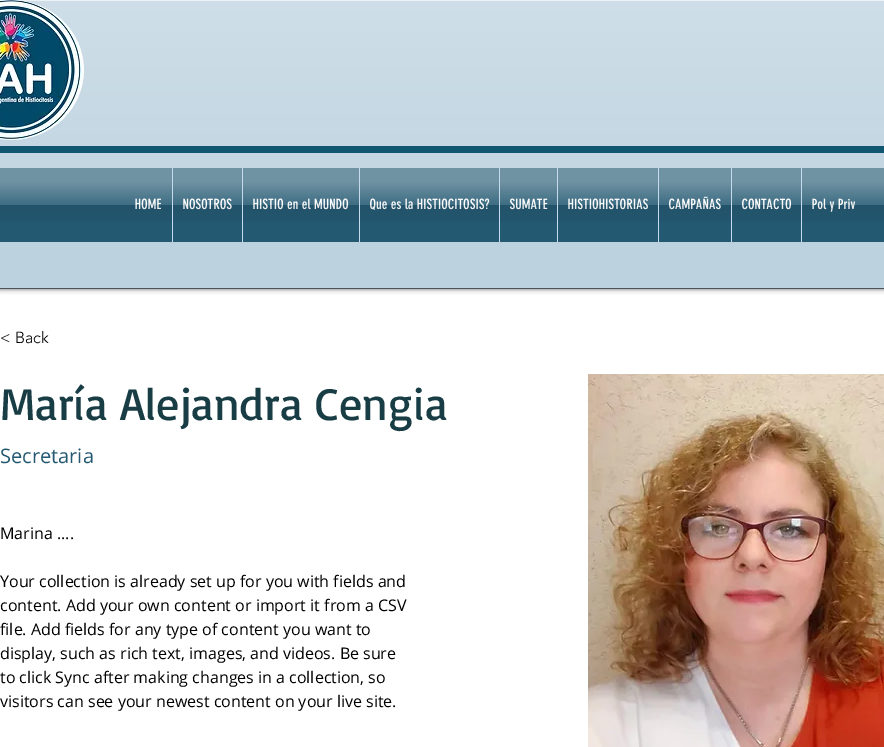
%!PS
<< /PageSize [884 747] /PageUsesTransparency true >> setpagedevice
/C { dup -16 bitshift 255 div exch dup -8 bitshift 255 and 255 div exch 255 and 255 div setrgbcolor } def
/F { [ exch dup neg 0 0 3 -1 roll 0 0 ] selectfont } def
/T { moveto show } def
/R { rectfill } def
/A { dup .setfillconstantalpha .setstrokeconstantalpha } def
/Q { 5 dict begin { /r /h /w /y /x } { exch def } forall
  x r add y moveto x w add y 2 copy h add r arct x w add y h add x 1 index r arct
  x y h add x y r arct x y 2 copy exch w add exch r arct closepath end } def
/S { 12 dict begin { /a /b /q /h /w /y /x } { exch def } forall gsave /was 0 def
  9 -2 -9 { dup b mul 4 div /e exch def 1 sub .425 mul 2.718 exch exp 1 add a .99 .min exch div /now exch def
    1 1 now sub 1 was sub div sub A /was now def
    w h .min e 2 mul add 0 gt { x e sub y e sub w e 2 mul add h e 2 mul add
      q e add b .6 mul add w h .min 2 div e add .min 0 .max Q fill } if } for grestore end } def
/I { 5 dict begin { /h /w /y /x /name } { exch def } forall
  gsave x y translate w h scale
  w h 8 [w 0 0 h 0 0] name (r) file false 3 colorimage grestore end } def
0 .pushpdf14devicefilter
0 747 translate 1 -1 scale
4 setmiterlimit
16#FFFFFF C
0 0 884 747 R
16#000000 C
0 0 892 289 0 2.5 .6 S
16#BDD2DF C
0 1 884 287 R
(1.rgb) 0 1 884 167 I
16#4C5459 C
0 288 884 1 R
16#EBF2F6 C
0 0 884 1 R
(2.rgb) 0 0 84 140 I
16#0F5671 C
0 146 884 7 R
16#245972 C
0 168 884 74 R
(3.rgb) 0 168 884 54 I
125 168 47 54 R
/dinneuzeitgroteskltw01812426-Bold 14 F
16#FFFFFF C
(HOME) 135 209 T
(4.rgb) 125 168 47 54 I
16#245972 C
173 168 69 54 R
16#C6DBEE C
172 168 1 74 R
16#FFFFFF C
(NOSOTROS) 183 209 T
(5.rgb) 173 168 69 54 I
16#245972 C
243 168 116 54 R
16#C6DBEE C
242 168 1 74 R
16#FFFFFF C
(HISTIO en el MUNDO) 253 209 T
(6.rgb) 243 168 116 54 I
16#245972 C
360 168 139 54 R
16#C6DBEE C
359 168 1 74 R
16#FFFFFF C
(Que es la HISTIOCITOSIS?) 370 209 T
(7.rgb) 360 168 139 54 I
16#245972 C
500 168 57 54 R
16#C6DBEE C
499 168 1 74 R
16#FFFFFF C
(SUMATE) 510 209 T
(8.rgb) 500 168 57 54 I
16#245972 C
558 168 100 54 R
16#C6DBEE C
557 168 1 74 R
16#FFFFFF C
(HISTIOHISTORIAS) 568 209 T
(9.rgb) 558 168 100 54 I
16#245972 C
659 168 72 54 R
16#C6DBEE C
658 168 1 74 R
16#FFFFFF C
(CAMPAÑAS) 669 209 T
(10.rgb) 659 168 72 54 I
16#245972 C
732 168 69 54 R
16#C6DBEE C
731 168 1 74 R
16#FFFFFF C
(CONTACTO) 742 209 T
(11.rgb) 732 168 69 54 I
16#245972 C
802 168 64 54 R
16#C6DBEE C
801 168 1 74 R
16#FFFFFF C
(Pol y Priv) 812 209 T
(12.rgb) 802 168 64 54 I
/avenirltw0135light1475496-Light 16 F
16#000000 C
(< Back) 0 343 T
/Basic-Regular 46 F
16#183D45 C
(María Alejandra Cengia) 0 420 T
/OpenSans-Regular 20 F
16#245972 C
(Secretaria) 0 463 T
/OpenSans-Regular 16 F
16#000000 C
(Marina ....) 0 539 T
(Your collection is already set up for you with fields and) 0 587 T
(content. Add your own content or import it from a CSV) 0 611 T
(file. Add fields for any type of content you want to) 0 635 T
(display, such as rich text, images, and videos. Be sure) 0 659 T
(to click Sync after making changes in a collection, so) 0 683 T
(visitors can see your newest content on your live site.) 0 707 T
(13.rgb) 588 374 296 373 I
.poppdf14devicefilter showpage
